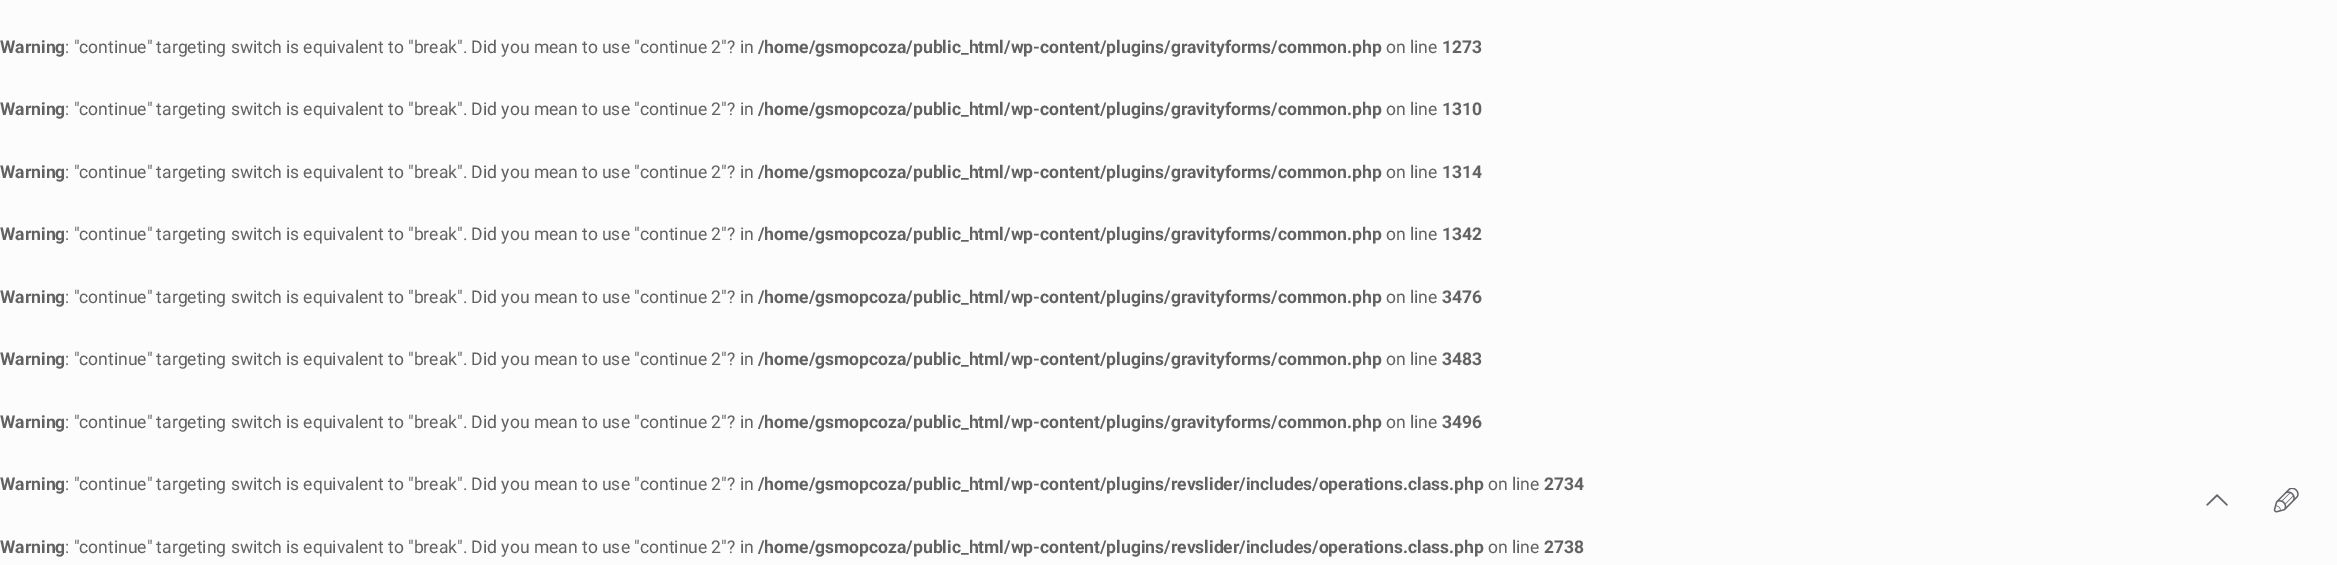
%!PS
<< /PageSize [2337 565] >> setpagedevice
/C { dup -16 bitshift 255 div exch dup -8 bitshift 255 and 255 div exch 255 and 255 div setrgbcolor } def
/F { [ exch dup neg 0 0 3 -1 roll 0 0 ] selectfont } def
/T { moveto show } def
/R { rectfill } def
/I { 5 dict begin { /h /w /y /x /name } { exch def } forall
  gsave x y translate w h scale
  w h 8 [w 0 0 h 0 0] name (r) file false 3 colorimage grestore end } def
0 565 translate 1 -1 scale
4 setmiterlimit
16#FCFCFC C
0 0 2337 565 R
/Roboto-Bold 17.5 F
16#626262 C
(Warning) 0 53 T
/Roboto-Regular 17.5 F
(: "continue" targeting switch is equivalent to "break". Did you mean to use "continue 2"? in) 65 53 T
/Roboto-Bold 17.5 F
(/home/gsmopcoza/public_html/wp-content/plugins/gravityforms/common.php) 758 53 T
/Roboto-Regular 17.5 F
(on line) 1386 53 T
/Roboto-Bold 17.5 F
(1273) 1442 53 T
(Warning) 0 115 T
/Roboto-Regular 17.5 F
(: "continue" targeting switch is equivalent to "break". Did you mean to use "continue 2"? in) 65 115 T
/Roboto-Bold 17.5 F
(/home/gsmopcoza/public_html/wp-content/plugins/gravityforms/common.php) 758 115 T
/Roboto-Regular 17.5 F
(on line) 1386 115 T
/Roboto-Bold 17.5 F
(1310) 1442 115 T
(Warning) 0 178 T
/Roboto-Regular 17.5 F
(: "continue" targeting switch is equivalent to "break". Did you mean to use "continue 2"? in) 65 178 T
/Roboto-Bold 17.5 F
(/home/gsmopcoza/public_html/wp-content/plugins/gravityforms/common.php) 758 178 T
/Roboto-Regular 17.5 F
(on line) 1386 178 T
/Roboto-Bold 17.5 F
(1314) 1442 178 T
(Warning) 0 240 T
/Roboto-Regular 17.5 F
(: "continue" targeting switch is equivalent to "break". Did you mean to use "continue 2"? in) 65 240 T
/Roboto-Bold 17.5 F
(/home/gsmopcoza/public_html/wp-content/plugins/gravityforms/common.php) 758 240 T
/Roboto-Regular 17.5 F
(on line) 1386 240 T
/Roboto-Bold 17.5 F
(1342) 1442 240 T
(Warning) 0 303 T
/Roboto-Regular 17.5 F
(: "continue" targeting switch is equivalent to "break". Did you mean to use "continue 2"? in) 65 303 T
/Roboto-Bold 17.5 F
(/home/gsmopcoza/public_html/wp-content/plugins/gravityforms/common.php) 758 303 T
/Roboto-Regular 17.5 F
(on line) 1386 303 T
/Roboto-Bold 17.5 F
(3476) 1442 303 T
(Warning) 0 365 T
/Roboto-Regular 17.5 F
(: "continue" targeting switch is equivalent to "break". Did you mean to use "continue 2"? in) 65 365 T
/Roboto-Bold 17.5 F
(/home/gsmopcoza/public_html/wp-content/plugins/gravityforms/common.php) 758 365 T
/Roboto-Regular 17.5 F
(on line) 1386 365 T
/Roboto-Bold 17.5 F
(3483) 1442 365 T
(Warning) 0 428 T
/Roboto-Regular 17.5 F
(: "continue" targeting switch is equivalent to "break". Did you mean to use "continue 2"? in) 65 428 T
/Roboto-Bold 17.5 F
(/home/gsmopcoza/public_html/wp-content/plugins/gravityforms/common.php) 758 428 T
/Roboto-Regular 17.5 F
(on line) 1386 428 T
/Roboto-Bold 17.5 F
(3496) 1442 428 T
(Warning) 0 490 T
/Roboto-Regular 17.5 F
(: "continue" targeting switch is equivalent to "break". Did you mean to use "continue 2"? in) 65 490 T
/Roboto-Bold 17.5 F
(/home/gsmopcoza/public_html/wp-content/plugins/revslider/includes/operations.class.php) 758 490 T
/Roboto-Regular 17.5 F
(on line) 1488 490 T
/Roboto-Bold 17.5 F
(2734) 1544 490 T
(1.rgb) 2206 494 22 12 I
(2.rgb) 2273 488 26 25 I
(Warning) 0 553 T
/Roboto-Regular 17.5 F
(: "continue" targeting switch is equivalent to "break". Did you mean to use "continue 2"? in) 65 553 T
/Roboto-Bold 17.5 F
(/home/gsmopcoza/public_html/wp-content/plugins/revslider/includes/operations.class.php) 758 553 T
/Roboto-Regular 17.5 F
(on line) 1488 553 T
/Roboto-Bold 17.5 F
(2738) 1544 553 T
showpage
